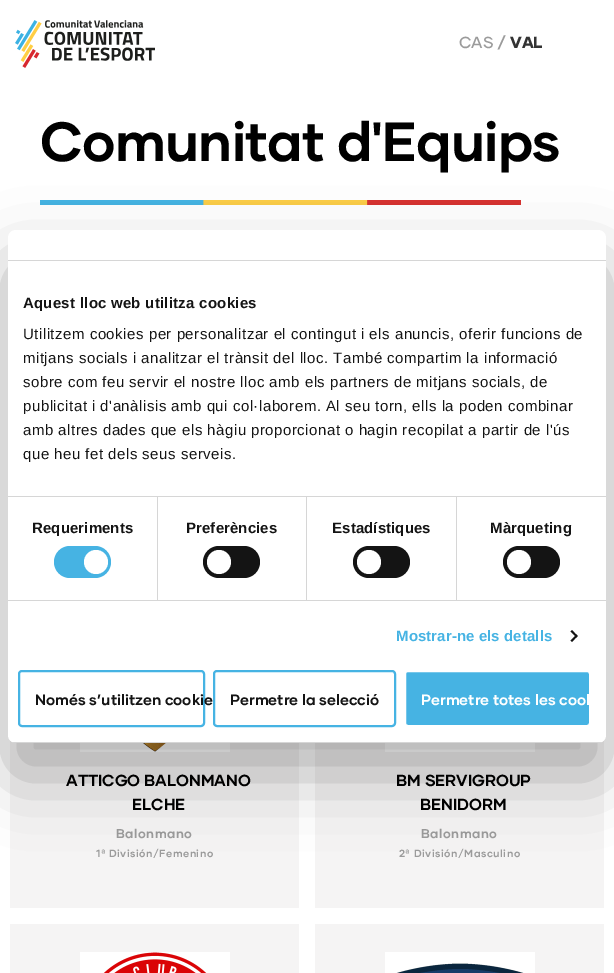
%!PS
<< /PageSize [614 973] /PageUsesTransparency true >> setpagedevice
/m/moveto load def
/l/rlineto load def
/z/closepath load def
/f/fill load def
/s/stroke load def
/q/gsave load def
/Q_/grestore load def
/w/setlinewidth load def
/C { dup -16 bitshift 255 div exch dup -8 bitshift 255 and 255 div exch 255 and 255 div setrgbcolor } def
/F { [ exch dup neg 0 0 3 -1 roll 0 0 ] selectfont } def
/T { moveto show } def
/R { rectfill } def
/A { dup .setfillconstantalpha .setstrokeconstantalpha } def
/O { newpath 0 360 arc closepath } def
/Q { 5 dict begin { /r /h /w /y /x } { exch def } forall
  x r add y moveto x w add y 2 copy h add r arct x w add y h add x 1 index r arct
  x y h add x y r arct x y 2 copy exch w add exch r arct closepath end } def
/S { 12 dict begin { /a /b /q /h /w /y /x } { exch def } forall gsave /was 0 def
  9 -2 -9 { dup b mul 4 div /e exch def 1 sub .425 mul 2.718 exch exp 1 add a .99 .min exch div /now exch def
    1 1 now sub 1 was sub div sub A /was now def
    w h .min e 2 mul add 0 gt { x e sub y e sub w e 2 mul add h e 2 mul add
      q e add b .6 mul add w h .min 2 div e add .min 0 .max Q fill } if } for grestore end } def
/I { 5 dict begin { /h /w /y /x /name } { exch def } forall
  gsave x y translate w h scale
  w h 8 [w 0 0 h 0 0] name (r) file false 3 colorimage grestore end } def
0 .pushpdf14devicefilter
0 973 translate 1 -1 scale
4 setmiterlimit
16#FFFFFF C
0 0 614 973 R
(1.rgb) 15 20 140 48 I
/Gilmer-SemiBold 16 F
16#9B9B9B C
(CAS) 459 48 T
/Gilmer-ExtraBold 16 F
(/) 497 48 T
16#333333 C
(VAL) 510 48 T
/Gilmer-Bold 55 F
16#000000 C
40 161 m -.75 0 (Comunitat d'Equips) ashow
(2.rgb) 40 200 481 5 I
16#F5F4F4 C
10 740 289 168 R
(3.rgb) 80 743 150 9 I
/Gilmer-Bold 16 F
16#000000 C
(ATTICGO BALONMANO) 66 786 T
(ELCHE) 132 810 T
/Gilmer-Bold 12.75 F
16#9B9B9B C
116 838 m .5 0 (Balonmano) ashow
/Gilmer-Bold 10.4 F
96 857 m .5 0 (1) ashow
/Roboto-Bold 10.4 F
101 857 m .5 0 (ª) ashow
/Gilmer-Bold 10.4 F
109 857 m .5 0 (División/Femenino) ashow
16#F5F4F4 C
315 740 289 168 R
(4.rgb) 385 743 150 9 I
/Gilmer-Bold 16 F
16#000000 C
(BM SERVIGROUP) 396 786 T
(BENIDORM) 420 810 T
/Gilmer-Bold 12.75 F
16#9B9B9B C
421 838 m .5 0 (Balonmano) ashow
/Gilmer-Bold 10.4 F
399 857 m .5 0 (2) ashow
/Roboto-Bold 10.4 F
405 857 m .5 0 (ª) ashow
/Gilmer-Bold 10.4 F
414 857 m .5 0 (División/Masculino) ashow
16#F5F4F4 C
10 924 289 49 R
(5.rgb) 80 952 150 21 I
315 924 289 49 R
(6.rgb) 385 952 150 21 I
16#000000 C
8 262 598 513 8 34 .3 S
16#FFFFFF C
8 230 598 513 8 Q f
16#D6D6D6 C
8 260 598 1 R
8 496 598 1 R
/LiberationSans-Bold 15 F
16#141414 C
23 308 m .25 0 (Aquest lloc web utilitza cookies) ashow
/LiberationSans-Regular 15 F
23 339 m .5 0 (Utilitzem cookies per personalitzar el contingut i els anuncis, oferir funcions de) ashow
23 363 m .5 0 (mitjans socials i analitzar el trànsit del lloc. També compartim la informació) ashow
23 387 m .5 0 (sobre com feu servir el nostre lloc amb els partners de mitjans socials, de) ashow
23 411 m .5 0 (publicitat i d'anàlisis amb qui col·laborem. Al seu torn, ells la poden combinar) ashow
23 435 m .5 0 (amb altres dades que els hàgiu proporcionat o hagin recopilat a partir de l'ús) ashow
23 459 m .5 0 (que heu fet dels seus serveis.) ashow
16#D6D6D6 C
8 600 598 1 R
157 497 1 103 R
/LiberationSans-Bold 15 F
16#141414 C
32 533 m .1 0 (Requeriments) ashow
16#46B3E3 C
54 546 57 32 16 Q f
16#FFFFFF C
96 562 12 O f
16#D6D6D6 C
306 497 1 103 R
16#141414 C
186 533 m .1 0 (Preferències) ashow
203 546 57 32 16 Q f
16#FFFFFF C
219 562 12 O f
16#D6D6D6 C
456 497 1 103 R
16#141414 C
332 533 m .1 0 (Estadístiques) ashow
353 546 57 32 16 Q f
16#FFFFFF C
369 562 12 O f
16#141414 C
490 533 m .1 0 (Màrqueting) ashow
503 546 57 32 16 Q f
16#FFFFFF C
519 562 12 O f
16#46B3E3 C
396 641 m .1 0 (Mostrar-ne els detalls) ashow
16#141414 C
572 630 m 5.5 6 l -1 1.5 l -6 -6 l z f
576.5 634.5 m 1 1.5 l -5.5 6 l -1.5 -1.5 l z f
q
8 230 598 513 8 Q clip newpath
16#D6D6D6 C
8 742 598 1 R
Q_
16#46B3E3 C
2 w
19 671 185 55 3 Q s
/Gilmer-Bold 15 F
16#141414 C
(Només s’utilitzen cookie) 35 705 T
16#46B3E3 C
214 671 181 55 3 Q s
16#141414 C
(Permetre la selecció) 230 705 T
16#46B3E3 C
405 671 185 55 3 Q q f Q_
16#FFFFFF C
s
(Permetre totes les cook) 421 705 T
.poppdf14devicefilter showpage
